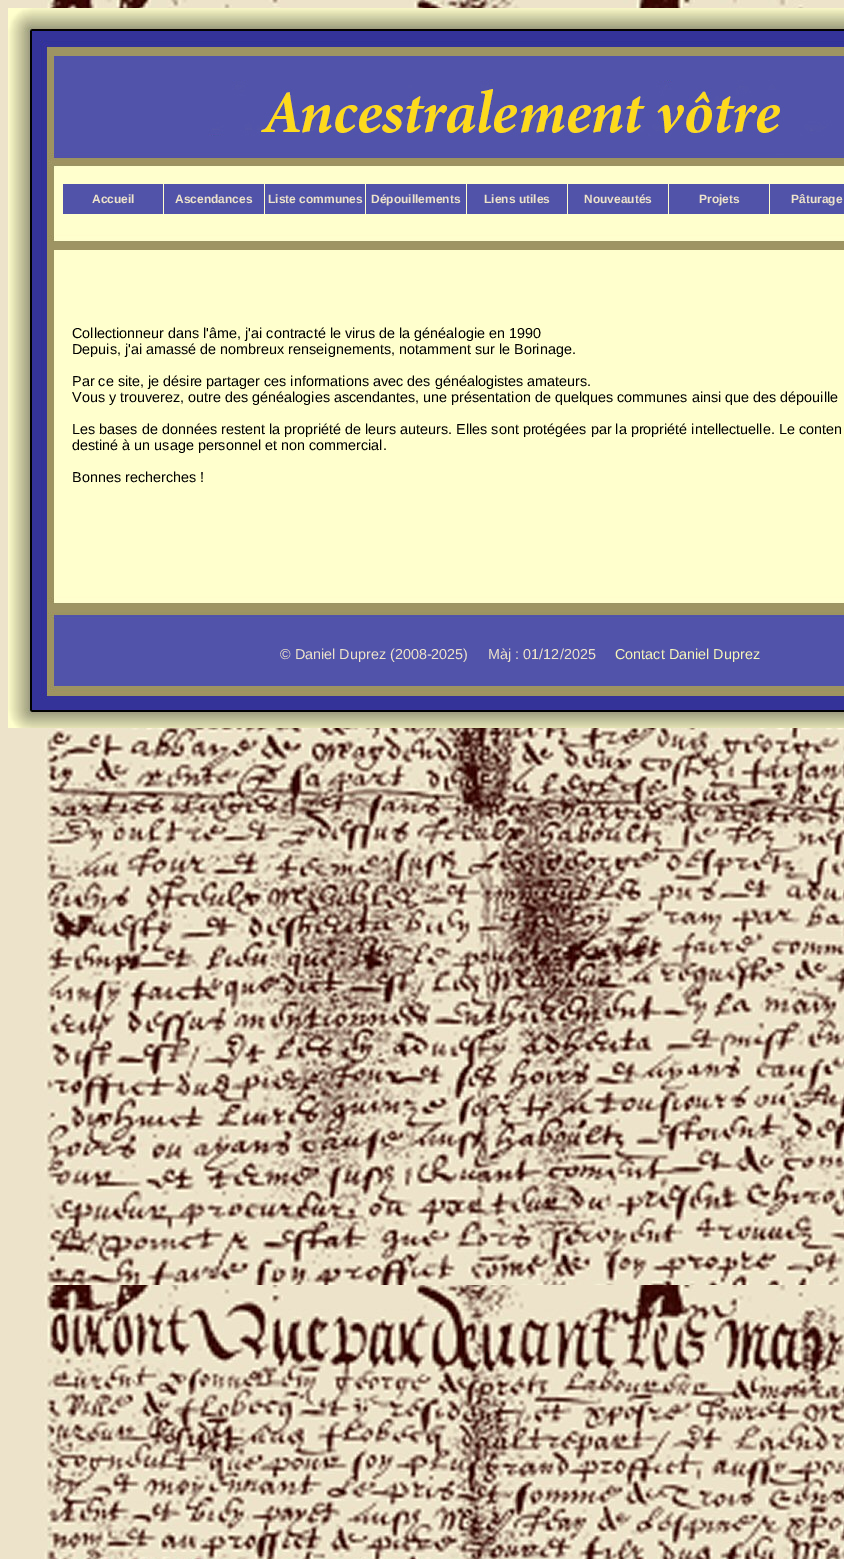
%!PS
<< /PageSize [844 1559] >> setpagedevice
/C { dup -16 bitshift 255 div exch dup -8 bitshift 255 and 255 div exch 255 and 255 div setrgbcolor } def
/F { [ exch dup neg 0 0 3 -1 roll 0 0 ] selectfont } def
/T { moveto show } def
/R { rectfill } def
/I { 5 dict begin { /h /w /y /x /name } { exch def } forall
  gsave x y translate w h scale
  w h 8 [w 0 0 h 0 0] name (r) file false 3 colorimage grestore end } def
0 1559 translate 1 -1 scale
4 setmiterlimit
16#FFFFFF C
0 0 844 1559 R
(1.rgb) 0 0 844 1559 I
(2.rgb) 8 8 836 162 I
(3.rgb) 8 170 836 91 I
16#5153A9 C
63 184 100 30 R
/LiberationSans-Bold 12 F
16#EDE3CA C
(Accueil) 92 203 T
16#5153A9 C
164 184 100 30 R
16#EDE3CA C
(Ascendances) 175 203 T
16#5153A9 C
265 184 100 30 R
16#EDE3CA C
(Liste communes) 268 203 T
16#5153A9 C
366 184 100 30 R
16#EDE3CA C
(Dépouillements) 371 203 T
16#5153A9 C
467 184 100 30 R
16#EDE3CA C
(Liens utiles) 484 203 T
16#5153A9 C
568 184 100 30 R
16#EDE3CA C
(Nouveautés) 584 203 T
16#5153A9 C
669 184 100 30 R
16#EDE3CA C
(Projets) 699 203 T
16#5153A9 C
770 184 74 30 R
16#EDE3CA C
(Pâturage) 791 203 T
(4.rgb) 8 261 836 335 I
/LiberationSans-Regular 14.4 F
16#000000 C
(Collectionneur dans l'âme, j'ai contracté le virus de la généalogie en 1990) 72 338 T
(Depuis, j'ai amassé de nombreux renseignements, notamment sur le Borinage.) 72 354 T
(Par ce site, je désire partager ces informations avec des généalogistes amateurs.) 72 386 T
(Vous y trouverez, outre des généalogies ascendantes, une présentation de quelques communes ainsi que des dépouille) 72 402 T
(Les bases de données restent la propriété de leurs auteurs. Elles sont protégées par la propriété intellectuelle. Le conten) 72 434 T
(destiné à un usage personnel et non commercial.) 72 450 T
(Bonnes recherches !) 72 482 T
(5.rgb) 8 596 836 132 I
16#EDE3CA C
(© Daniel Duprez \(2008-2025\)     Màj : 01/12/2025) 280 659 T
16#F7F6B9 C
(Contact Daniel Duprez) 615 659 T
showpage
